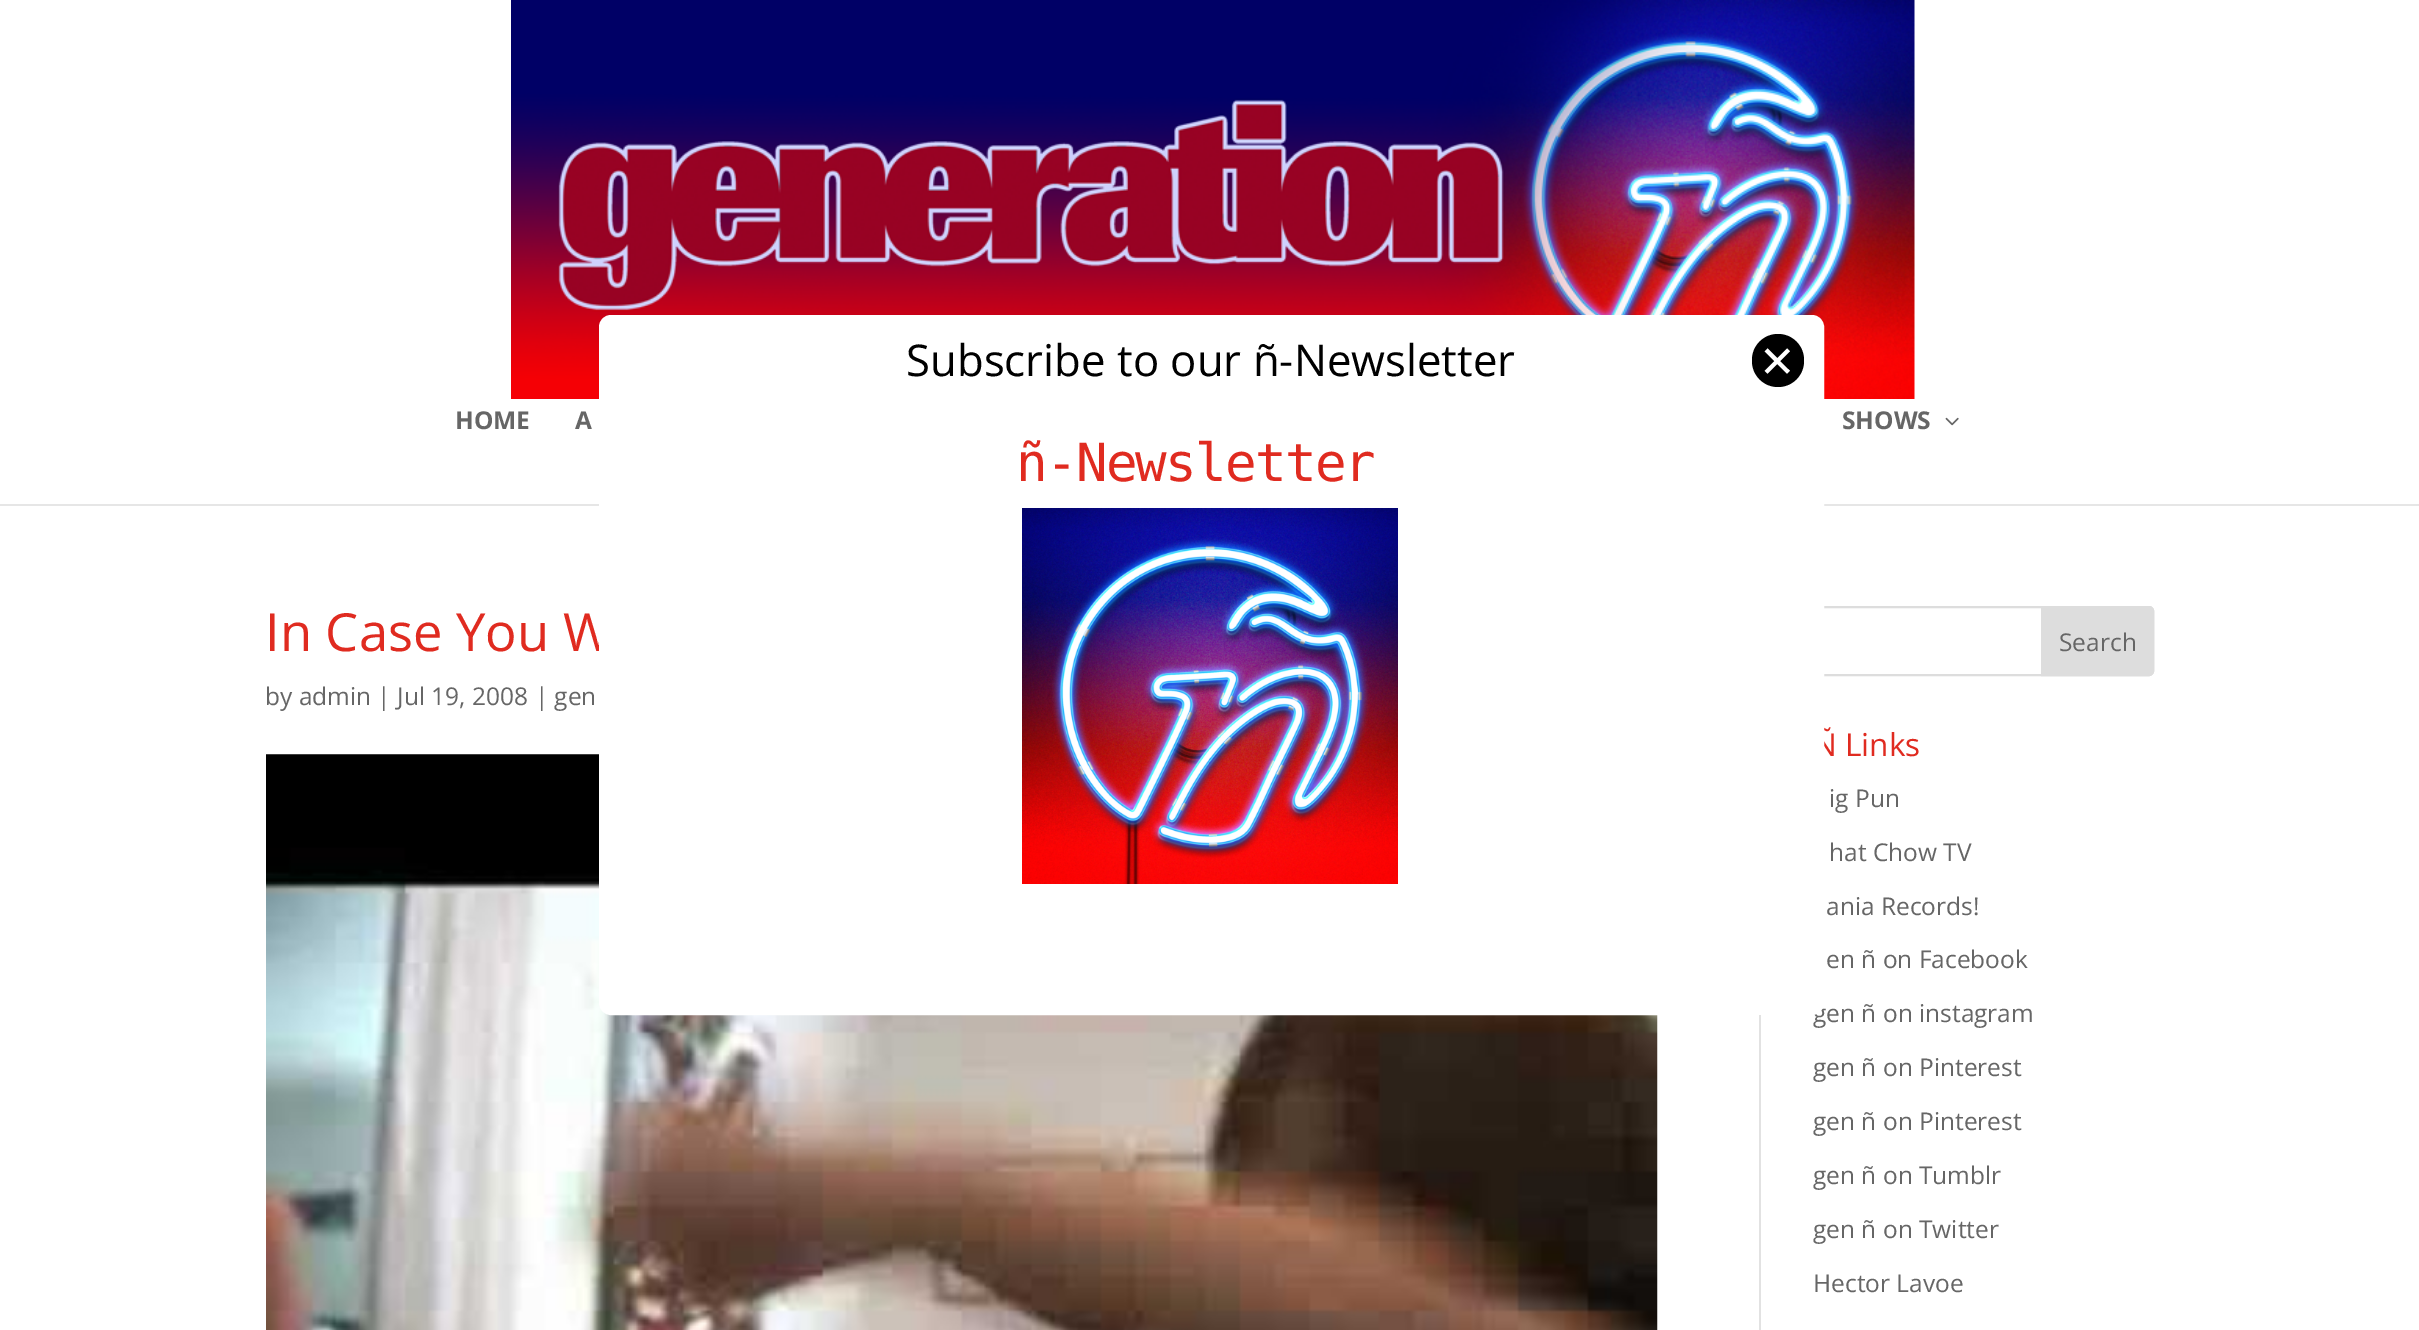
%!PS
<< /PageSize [2419 1330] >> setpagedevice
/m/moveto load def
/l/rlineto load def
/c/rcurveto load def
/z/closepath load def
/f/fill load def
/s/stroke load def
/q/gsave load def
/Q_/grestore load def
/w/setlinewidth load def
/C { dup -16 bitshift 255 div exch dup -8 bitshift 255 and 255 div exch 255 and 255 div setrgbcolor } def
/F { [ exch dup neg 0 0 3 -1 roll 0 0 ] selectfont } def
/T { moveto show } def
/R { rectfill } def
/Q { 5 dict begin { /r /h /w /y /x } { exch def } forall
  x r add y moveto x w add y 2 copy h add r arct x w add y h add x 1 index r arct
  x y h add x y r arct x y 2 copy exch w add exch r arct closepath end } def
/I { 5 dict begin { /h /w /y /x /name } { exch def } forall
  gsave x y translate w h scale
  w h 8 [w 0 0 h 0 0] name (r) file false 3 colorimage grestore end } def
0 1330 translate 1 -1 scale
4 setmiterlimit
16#FFFFFF C
0 0 2419 1330 R
16#E6E6E6 C
0 504 2419 2 R
(2.rgb) 511 0 1404 399 I
/OpenSans-Regular 52.5 F
16#E02B20 C
(In Case You W) 265 651 T
(4.rgb) 266 754 1392 576 I
16#DDDDDD C
2 w
1814 607 339 68 4 Q s
/OpenSans-Regular 31.5 F
16#E02B20 C
(Ñ Links) 1813 756 T
/OpenSans-Regular 24.5 F
16#666666 C
(gen ñ on instagram) 1813 1022 T
16#FFFFFF C
600 316 1223 698 11 Q q f Q_
s
/OpenSans-Regular 43.75 F
16#000000 C
(Subscribe to our ñ-Newsletter) 906 376 T
1752 334 52 53 26 Q f
/DejaVuSans-Regular 43.75 F
16#FFFFFF C
(✕) 1759 377 T
/DejaVuSansMono-Regular 52.5 F
16#E02B20 C
1016 481 m -1.75 0 (ñ-Newsletter) ashow
(1.rgb) 1022 508 376 376 I
/OpenSans-Bold 24.5 F
16#666666 C
(HOME) 455 429 T
(A) 575 429 T
(SHOWS) 1842 429 T
(3.rgb) 1945 417 14 9 I
/OpenSans-Regular 24.5 F
(by admin | Jul 19, 2008 | gen) 265 705 T
16#DDDDDD C
2042 607 m 107 0 l 2 0 4 2 4 4 c 0 60 l 0 2 -2 4 -4 4 c -107 0 l z q f Q_
s
16#666666 C
(Search) 2059 651 T
(ig Pun) 1829 807 T
(hat Chow TV) 1829 861 T
(ania Records!) 1826 915 T
(en ñ on Facebook) 1826 968 T
(gen ñ on Pinterest) 1813 1076 T
(gen ñ on Pinterest) 1813 1130 T
(gen ñ on Tumblr) 1813 1184 T
(gen ñ on Twitter) 1813 1238 T
(Hector Lavoe) 1813 1292 T
16#E2E2E2 C
1759 1015 2 315 R
showpage
